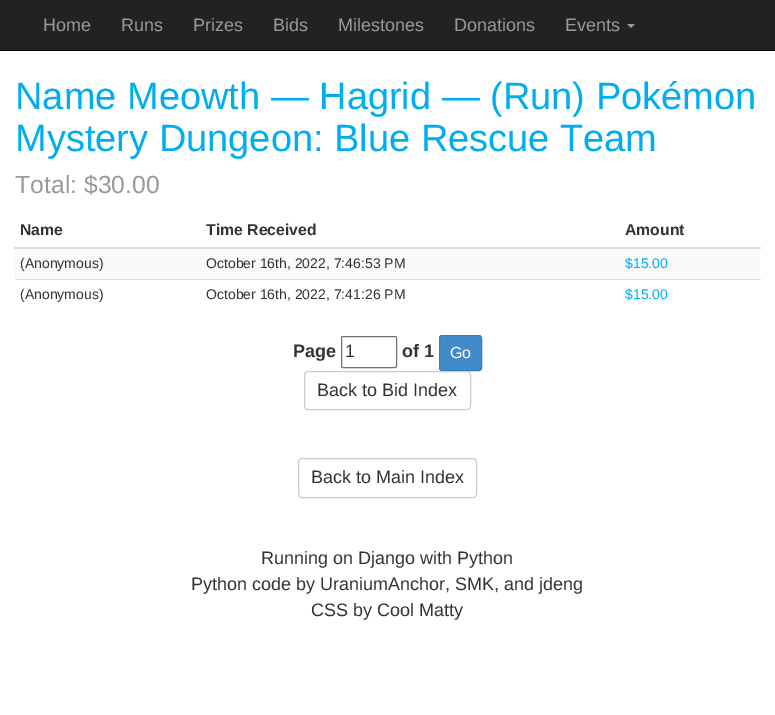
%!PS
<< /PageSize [775 715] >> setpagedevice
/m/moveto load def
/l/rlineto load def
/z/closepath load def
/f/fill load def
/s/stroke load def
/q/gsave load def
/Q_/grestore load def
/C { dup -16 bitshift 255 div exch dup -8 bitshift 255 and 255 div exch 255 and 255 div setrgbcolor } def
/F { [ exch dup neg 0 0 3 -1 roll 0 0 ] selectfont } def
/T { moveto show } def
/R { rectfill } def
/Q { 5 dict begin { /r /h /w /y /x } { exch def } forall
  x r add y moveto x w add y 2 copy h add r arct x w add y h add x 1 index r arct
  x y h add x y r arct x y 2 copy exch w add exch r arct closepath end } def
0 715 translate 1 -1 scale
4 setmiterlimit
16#FFFFFF C
0 0 775 715 R
16#222222 C
0 0 775 50 R
16#080808 C
0 50 775 1 R
/LiberationSans-Regular 18 F
16#999999 C
(Home) 43 31 T
(Runs) 121 31 T
(Prizes) 193 31 T
(Bids) 273 31 T
(Milestones) 338 31 T
(Donations) 454 31 T
(Events) 565 31 T
627 24 m 8 0 l -4 4 l z f
/LiberationSans-Regular 38 F
16#00AEEF C
(Name Meowth — Hagrid — \(Run\) Pokémon) 15 109 T
(Mystery Dungeon: Blue Rescue Team) 15 151 T
/LiberationSans-Regular 24.75 F
16#999999 C
(Total: $30.00) 15 193 T
/LiberationSans-Bold 15.75 F
16#333333 C
(Name) 20 235 T
(Time Received) 206 235 T
16#DDDDDD C
14 247 747 2 R
16#333333 C
(Amount) 625 235 T
16#F9F9F9 C
15 249 745 30 R
/LiberationSans-Regular 14 F
16#333333 C
(\(Anonymous\)) 20 268 T
(October 16th, 2022, 7:46:53 PM) 206 268 T
16#00AEEF C
($15.00) 625 268 T
16#333333 C
(\(Anonymous\)) 20 299 T
(October 16th, 2022, 7:41:26 PM) 206 299 T
16#DDDDDD C
15 279 746 1 R
16#00AEEF C
($15.00) 625 299 T
/LiberationSans-Bold 18 F
16#333333 C
(Page) 293 357 T
16#767676 C
341.5 336.5 55 31 1.5 Q s
/LiberationSans-Regular 18 F
16#333333 C
(1) 345 357 T
/LiberationSans-Bold 18 F
(of 1) 402 357 T
16#428BCA C
439.5 335.5 42 35 2.5 Q q f Q_
16#357EBD C
s
/LiberationSans-Regular 16 F
16#FFFFFF C
(Go) 450 358 T
16#CCCCCC C
304.5 371.5 166 38 3.5 Q s
/LiberationSans-Regular 18 F
16#333333 C
(Back to Bid Index) 317 396 T
16#CCCCCC C
298.5 458.5 178 39 3.5 Q s
16#333333 C
(Back to Main Index) 311 483 T
(Running on Django with Python) 261 564 T
(Python code by UraniumAnchor, SMK, and jdeng) 191 590 T
(CSS by Cool Matty) 311 616 T
showpage
